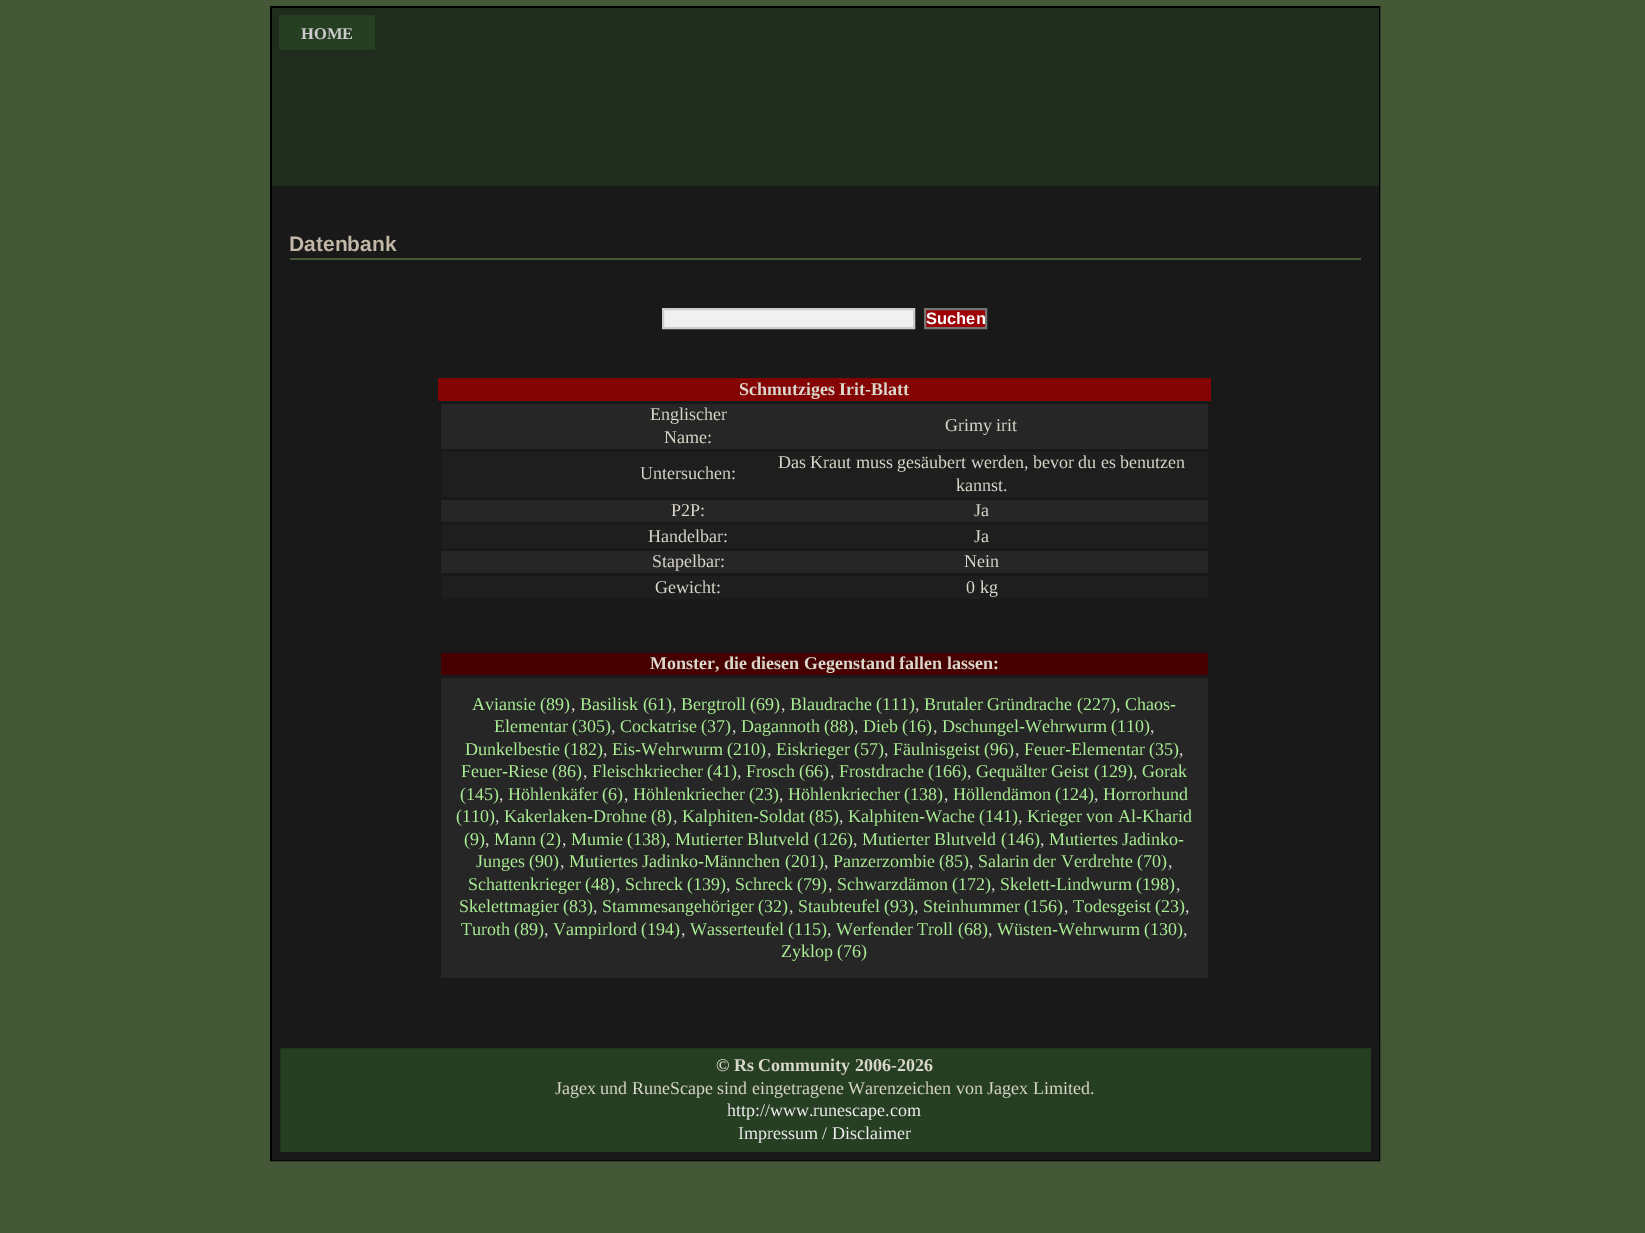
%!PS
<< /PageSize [1645 1233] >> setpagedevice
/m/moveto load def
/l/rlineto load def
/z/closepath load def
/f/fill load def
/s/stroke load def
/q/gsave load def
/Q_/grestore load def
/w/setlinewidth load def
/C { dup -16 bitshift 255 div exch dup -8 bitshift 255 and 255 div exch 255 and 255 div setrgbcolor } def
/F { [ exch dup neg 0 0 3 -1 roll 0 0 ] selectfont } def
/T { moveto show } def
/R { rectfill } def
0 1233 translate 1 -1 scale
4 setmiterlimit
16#445737 C
0 0 1645 1233 R
16#000000 C
2 w
271 7 1108 1153 rectstroke
16#202C1E C
272 8 1107 178 R
16#263F23 C
279 15 96 35 R
/LiberationSerif-Bold 16.5 F
16#CCCCCC C
(HOME) 301 39 T
16#191919 C
272 186 1107 854 R
16#445737 C
290 258 1071 2 R
/LiberationSans-Bold 21 F
16#C1B7A6 C
(Datenbank) 289 251 T
16#F0F0F0 C
663 309 m 251 0 l 0 19 l -251 0 l z q f Q_
16#CCCCCC C
s
16#9C0005 C
925 309 m 61 0 l 0 19 l -61 0 l z q f Q_
16#757575 C
s
/LiberationSans-Bold 16.5 F
16#FFFFFF C
(Suchen) 926 324 T
16#840303 C
438 378 773 23 R
/LiberationSerif-Bold 18 F
16#D9D6CA C
(Schmutziges Irit-Blatt) 739 395 T
16#262626 C
441 404 767 45 R
/LiberationSerif-Regular 18 F
16#D9D6CA C
(Englischer) 650 420 T
(Name:) 664 443 T
(Grimy irit) 945 431 T
16#1E1E1E C
441 452 767 45 R
16#D9D6CA C
(Untersuchen:) 640 479 T
(Das Kraut muss gesäubert werden, bevor du es benutzen) 778 468 T
(kannst.) 956 491 T
16#262626 C
441 500 767 22 R
16#D9D6CA C
(P2P:) 671 516 T
(Ja) 974 516 T
16#1E1E1E C
441 525 767 23 R
16#D9D6CA C
(Handelbar:) 648 542 T
(Ja) 974 542 T
16#262626 C
441 551 767 22 R
16#D9D6CA C
(Stapelbar:) 652 567 T
(Nein) 964 567 T
16#1E1E1E C
441 576 767 23 R
16#D9D6CA C
(Gewicht:) 655 593 T
(0 kg) 966 593 T
16#470000 C
441 653 767 22 R
/LiberationSerif-Bold 18 F
16#D9D6CA C
(Monster, die diesen Gegenstand fallen lassen:) 650 669 T
16#262626 C
441 678 767 300 R
/LiberationSerif-Regular 18 F
16#AAED94 C
(Aviansie \(89\)) 472 710 T
16#D9D6CA C
(,) 571 710 T
16#AAED94 C
(Basilisk \(61\)) 580 710 T
16#D9D6CA C
(,) 672 710 T
16#AAED94 C
(Bergtroll \(69\)) 681 710 T
16#D9D6CA C
(,) 781 710 T
16#AAED94 C
(Blaudrache \(111\)) 790 710 T
16#D9D6CA C
(,) 915 710 T
16#AAED94 C
(Brutaler Gründrache \(227\)) 924 710 T
16#D9D6CA C
(,) 1116 710 T
16#AAED94 C
(Chaos-) 1125 710 T
(Elementar \(305\)) 494 732 T
16#D9D6CA C
(,) 611 732 T
16#AAED94 C
(Cockatrise \(37\)) 620 732 T
16#D9D6CA C
(,) 732 732 T
16#AAED94 C
(Dagannoth \(88\)) 741 732 T
16#D9D6CA C
(,) 854 732 T
16#AAED94 C
(Dieb \(16\)) 863 732 T
16#D9D6CA C
(,) 933 732 T
16#AAED94 C
(Dschungel-Wehrwurm \(110\)) 942 732 T
16#D9D6CA C
(,) 1150 732 T
16#AAED94 C
(Dunkelbestie \(182\)) 465 755 T
16#D9D6CA C
(,) 603 755 T
16#AAED94 C
(Eis-Wehrwurm \(210\)) 612 755 T
16#D9D6CA C
(,) 767 755 T
16#AAED94 C
(Eiskrieger \(57\)) 776 755 T
16#D9D6CA C
(,) 884 755 T
16#AAED94 C
(Fäulnisgeist \(96\)) 893 755 T
16#D9D6CA C
(,) 1015 755 T
16#AAED94 C
(Feuer-Elementar \(35\)) 1024 755 T
16#D9D6CA C
(,) 1179 755 T
16#AAED94 C
(Feuer-Riese \(86\)) 461 777 T
16#D9D6CA C
(,) 583 777 T
16#AAED94 C
(Fleischkriecher \(41\)) 592 777 T
16#D9D6CA C
(,) 737 777 T
16#AAED94 C
(Frosch \(66\)) 746 777 T
16#D9D6CA C
(,) 830 777 T
16#AAED94 C
(Frostdrache \(166\)) 839 777 T
16#D9D6CA C
(,) 967 777 T
16#AAED94 C
(Gequälter Geist \(129\)) 976 777 T
16#D9D6CA C
(,) 1133 777 T
16#AAED94 C
(Gorak) 1142 777 T
(\(145\)) 460 800 T
16#D9D6CA C
(,) 499 800 T
16#AAED94 C
(Höhlenkäfer \(6\)) 508 800 T
16#D9D6CA C
(,) 624 800 T
16#AAED94 C
(Höhlenkriecher \(23\)) 633 800 T
16#D9D6CA C
(,) 779 800 T
16#AAED94 C
(Höhlenkriecher \(138\)) 788 800 T
16#D9D6CA C
(,) 944 800 T
16#AAED94 C
(Höllendämon \(124\)) 953 800 T
16#D9D6CA C
(,) 1094 800 T
16#AAED94 C
(Horrorhund) 1103 800 T
(\(110\)) 456 822 T
16#D9D6CA C
(,) 495 822 T
16#AAED94 C
(Kakerlaken-Drohne \(8\)) 504 822 T
16#D9D6CA C
(,) 673 822 T
16#AAED94 C
(Kalphiten-Soldat \(85\)) 682 822 T
16#D9D6CA C
(,) 839 822 T
16#AAED94 C
(Kalphiten-Wache \(141\)) 848 822 T
16#D9D6CA C
(,) 1018 822 T
16#AAED94 C
(Krieger von Al-Kharid) 1027 822 T
(\(9\)) 464 845 T
16#D9D6CA C
(,) 485 845 T
16#AAED94 C
(Mann \(2\)) 494 845 T
16#D9D6CA C
(,) 562 845 T
16#AAED94 C
(Mumie \(138\)) 571 845 T
16#D9D6CA C
(,) 666 845 T
16#AAED94 C
(Mutierter Blutveld \(126\)) 675 845 T
16#D9D6CA C
(,) 853 845 T
16#AAED94 C
(Mutierter Blutveld \(146\)) 862 845 T
16#D9D6CA C
(,) 1040 845 T
16#AAED94 C
(Mutiertes Jadinko-) 1049 845 T
(Junges \(90\)) 476 867 T
16#D9D6CA C
(,) 560 867 T
16#AAED94 C
(Mutiertes Jadinko-Männchen \(201\)) 569 867 T
16#D9D6CA C
(,) 824 867 T
16#AAED94 C
(Panzerzombie \(85\)) 833 867 T
16#D9D6CA C
(,) 969 867 T
16#AAED94 C
(Salarin der Verdrehte \(70\)) 978 867 T
16#D9D6CA C
(,) 1168 867 T
16#AAED94 C
(Schattenkrieger \(48\)) 468 890 T
16#D9D6CA C
(,) 616 890 T
16#AAED94 C
(Schreck \(139\)) 625 890 T
16#D9D6CA C
(,) 726 890 T
16#AAED94 C
(Schreck \(79\)) 735 890 T
16#D9D6CA C
(,) 828 890 T
16#AAED94 C
(Schwarzdämon \(172\)) 837 890 T
16#D9D6CA C
(,) 991 890 T
16#AAED94 C
(Skelett-Lindwurm \(198\)) 1000 890 T
16#D9D6CA C
(,) 1176 890 T
16#AAED94 C
(Skelettmagier \(83\)) 459 912 T
16#D9D6CA C
(,) 593 912 T
16#AAED94 C
(Stammesangehöriger \(32\)) 602 912 T
16#D9D6CA C
(,) 789 912 T
16#AAED94 C
(Staubteufel \(93\)) 798 912 T
16#D9D6CA C
(,) 914 912 T
16#AAED94 C
(Steinhummer \(156\)) 923 912 T
16#D9D6CA C
(,) 1064 912 T
16#AAED94 C
(Todesgeist \(23\)) 1073 912 T
16#D9D6CA C
(,) 1185 912 T
16#AAED94 C
(Turoth \(89\)) 461 935 T
16#D9D6CA C
(,) 544 935 T
16#AAED94 C
(Vampirlord \(194\)) 553 935 T
16#D9D6CA C
(,) 681 935 T
16#AAED94 C
(Wasserteufel \(115\)) 690 935 T
16#D9D6CA C
(,) 827 935 T
16#AAED94 C
(Werfender Troll \(68\)) 836 935 T
16#D9D6CA C
(,) 988 935 T
16#AAED94 C
(Wüsten-Wehrwurm \(130\)) 997 935 T
16#D9D6CA C
(,) 1183 935 T
16#AAED94 C
(Zyklop \(76\)) 781 957 T
16#263F23 C
276 1044 m 1099 0 l 0 112 l -1099 0 l z q f Q_
16#191919 C
8 w
s
/LiberationSerif-Bold 18 F
16#D9D6CA C
(© Rs Community 2006-2026) 716 1071 T
/LiberationSerif-Regular 18 F
(Jagex und RuneScape sind eingetragene Warenzeichen von Jagex Limited.) 555 1094 T
16#EEEEEE C
(http://www.runescape.com) 727 1116 T
(Impressum / Disclaimer) 738 1139 T
showpage
